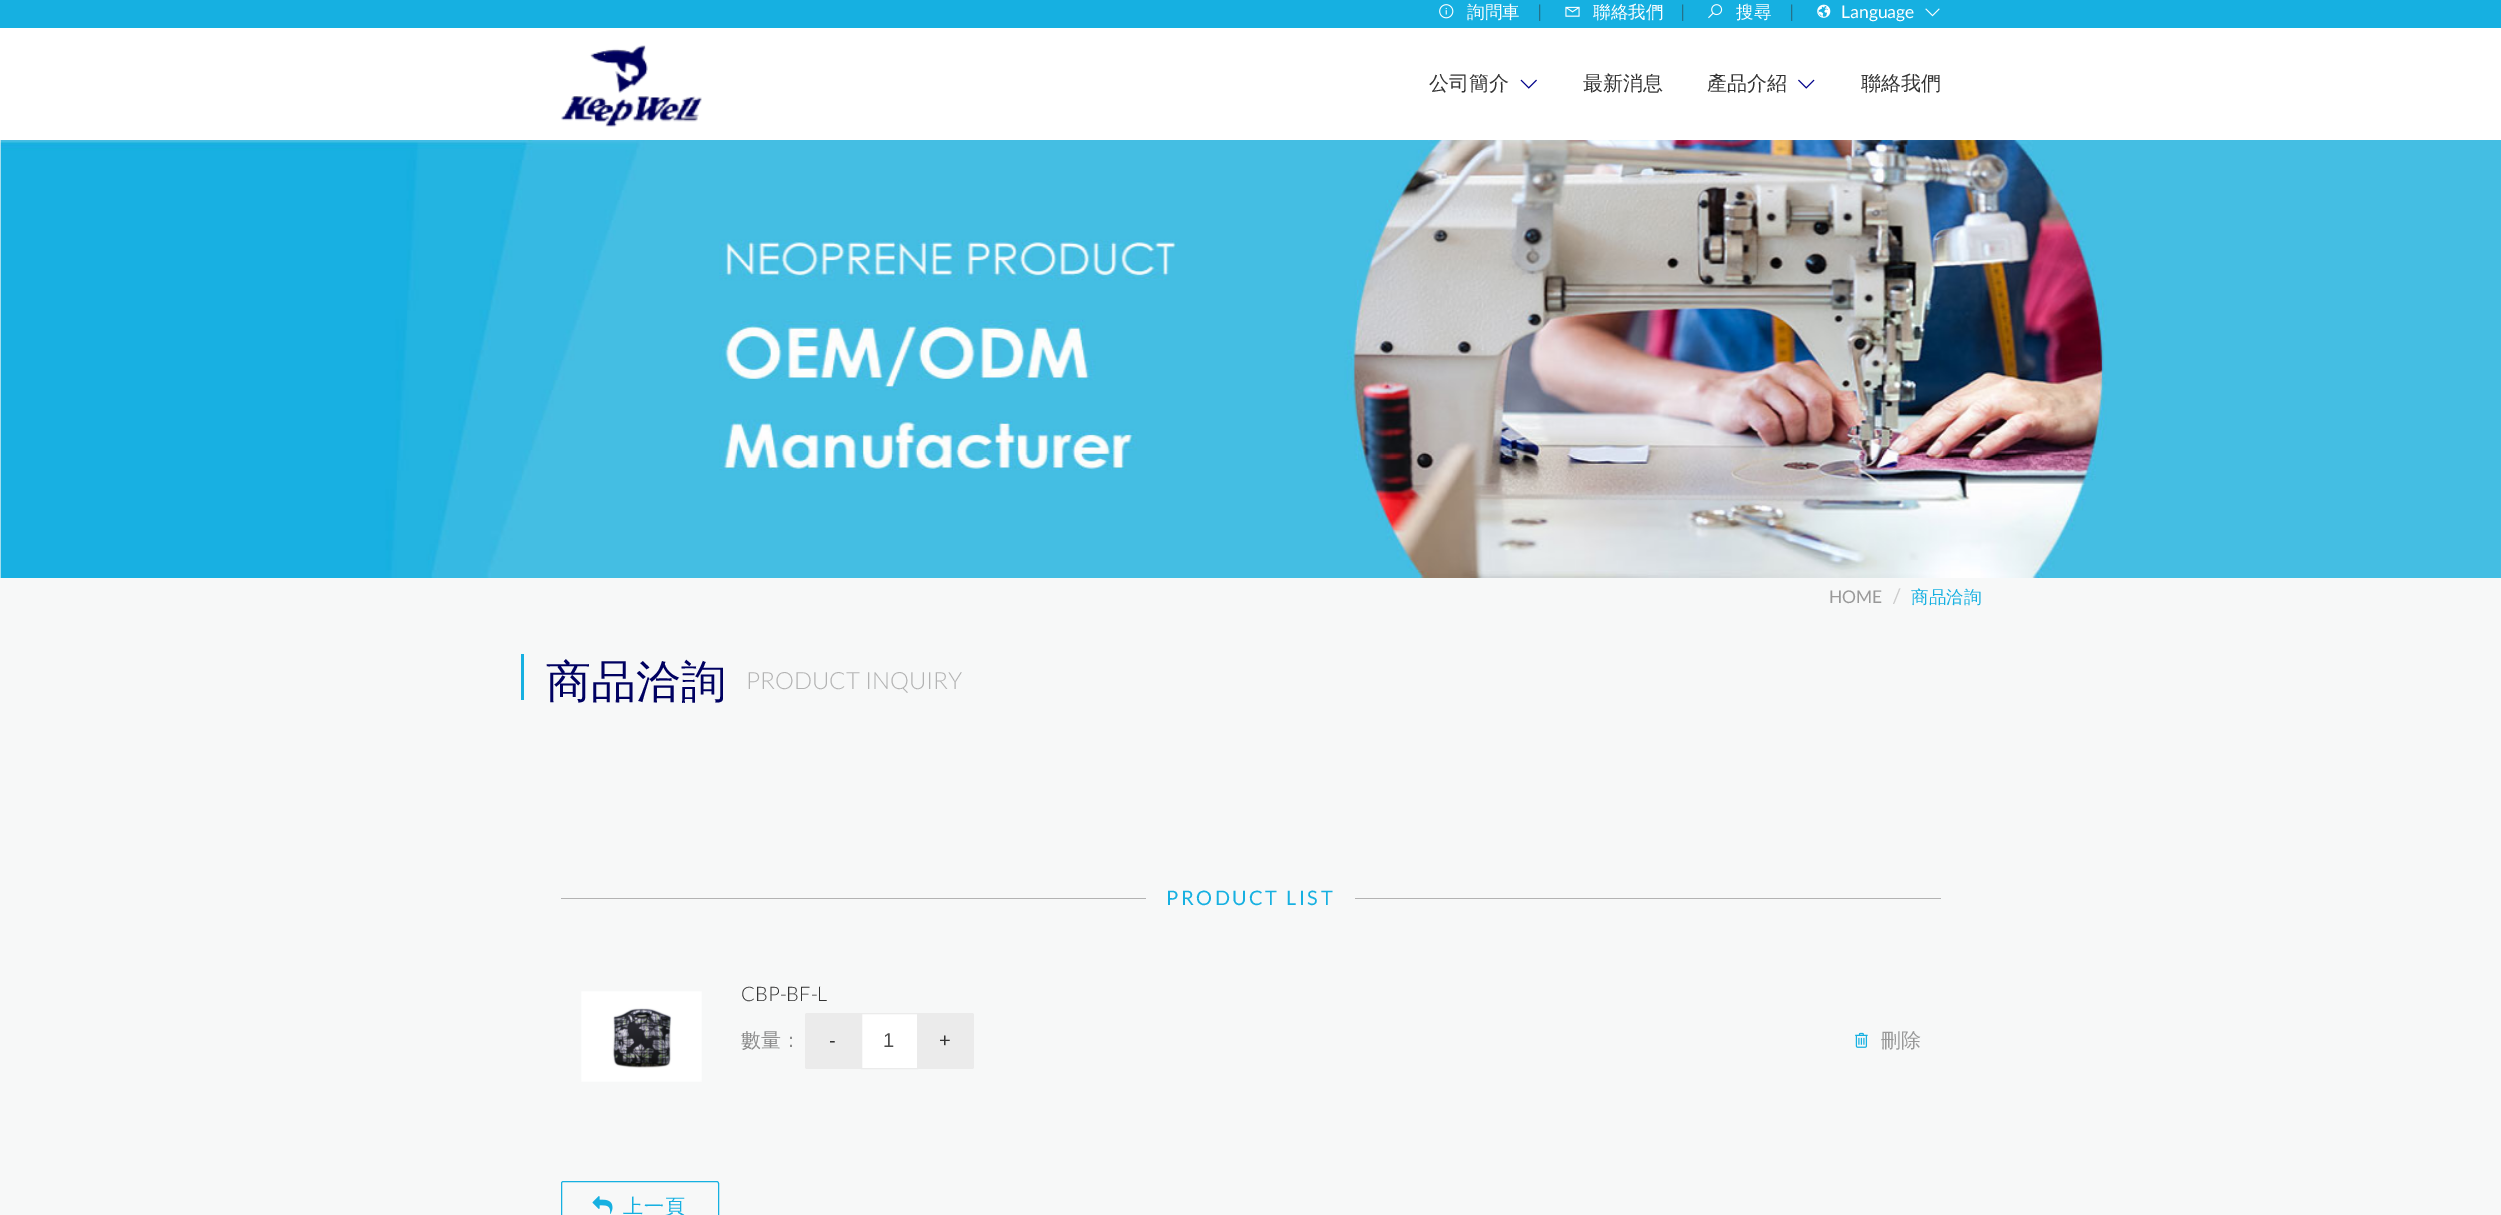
%!PS
<< /PageSize [2501 1215] >> setpagedevice
/m/moveto load def
/l/rlineto load def
/c/rcurveto load def
/z/closepath load def
/f/fill load def
/s/stroke load def
/q/gsave load def
/Q_/grestore load def
/C { dup -16 bitshift 255 div exch dup -8 bitshift 255 and 255 div exch 255 and 255 div setrgbcolor } def
/F { [ exch dup neg 0 0 3 -1 roll 0 0 ] selectfont } def
/T { moveto show } def
/R { rectfill } def
/Q { 5 dict begin { /r /h /w /y /x } { exch def } forall
  x r add y moveto x w add y 2 copy h add r arct x w add y h add x 1 index r arct
  x y h add x y r arct x y 2 copy exch w add exch r arct closepath end } def
/I { 5 dict begin { /h /w /y /x /name } { exch def } forall
  gsave x y translate w h scale
  w h 8 [w 0 0 h 0 0] name (r) file false 3 colorimage grestore end } def
0 1215 translate 1 -1 scale
4 setmiterlimit
16#F7F8F8 C
0 0 2501 1215 R
16#FFFFFF C
0 28 2501 112 R
16#16B0E1 C
0 0 2501 28 R
(1.rgb) 1439 4 15 15 I
/WenQuanYiZenHei-Medium 17.5 F
16#FFFFFF C
(詢問車) 1467 18 T
/Lato-Regular 17.5 F
16#25728A C
(|) 1537 18 T
(2.rgb) 1565 6 15 11 I
/WenQuanYiZenHei-Medium 17.5 F
16#FFFFFF C
(聯絡我們) 1593 18 T
/Lato-Regular 17.5 F
16#25728A C
(|) 1680 18 T
(3.rgb) 1708 4 15 15 I
/WenQuanYiZenHei-Medium 17.5 F
16#FFFFFF C
(搜尋) 1736 18 T
/Lato-Regular 17.5 F
16#25728A C
(|) 1789 18 T
(4.rgb) 1817 4 14 14 I
16#FFFFFF C
(Language) 1841 18 T
(5.rgb) 1925 8 15 9 I
(6.rgb) 560 45 142 82 I
/WenQuanYiZenHei-Medium 20 F
16#333333 C
(公司簡介) 1429 90 T
(7.rgb) 1520 79 17 10 I
(最新消息) 1583 90 T
(產品介紹) 1707 90 T
(8.rgb) 1798 79 17 10 I
(聯絡我們) 1861 90 T
(9.rgb) 0 140 2501 438 I
/Lato-Regular 17.5 F
16#999999 C
(HOME) 1829 603 T
/Lato-Regular 20 F
16#CCCCCC C
(/) 1893 603 T
/WenQuanYiZenHei-Medium 17.5 F
16#16B0E1 C
(商品洽詢) 1911 603 T
521 654 3 46 R
/WenQuanYiZenHei-Medium 45 F
16#000161 C
(商品洽詢) 546 697 T
/Lato-Light 23.75 F
16#B3B3B3 C
(PRODUCT INQUIRY) 746 689 T
561 898 585 1 R
/Lato-Regular 20 F
16#16B0E1 C
1166 905 m 2.5 0 (PRODUCT LIST) ashow
16#B3B3B3 C
1355 898 586 1 R
(10.rgb) 581 991 121 91 I
/Lato-Light 20 F
16#333333 C
(CBP-BF-L) 741 1001 T
/WenQuanYiZenHei-Medium 20 F
16#8C8C8C C
(數量：) 741 1047 T
16#EBEBEB C
807.5 1013 m 53.5 0 l 0 56 l -53.5 0 l -1.5 0 -2.5 -1 -2.5 -2.5 c 0 -51 l 0 -1.5 1 -2.5 2.5 -2.5 c z f
/LiberationSans-Regular 20 F
16#333333 C
829 1047 m 1 0 (-) ashow
16#FFFFFF C
861.5 1013.5 m 56 0 l 0 55 l -56 0 l z q f Q_
16#EBEBEB C
s
16#4D4D4D C
883 1047 m 1 0 (1) ashow
16#EBEBEB C
918 1013 m 53.5 0 l 1.5 0 2.5 1 2.5 2.5 c 0 51 l 0 1.5 -1 2.5 -2.5 2.5 c -53.5 0 l z f
16#333333 C
939 1047 m 1 0 (+) ashow
(11.rgb) 1855 1032 13 16 I
/WenQuanYiZenHei-Medium 20 F
16#999999 C
(刪除) 1881 1047 T
16#16B0E1 C
561.5 1181.5 157 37 2 Q s
(12.rgb) 592 1196 21 18 I
623 1213 m 1 0 (上一頁) ashow
showpage
